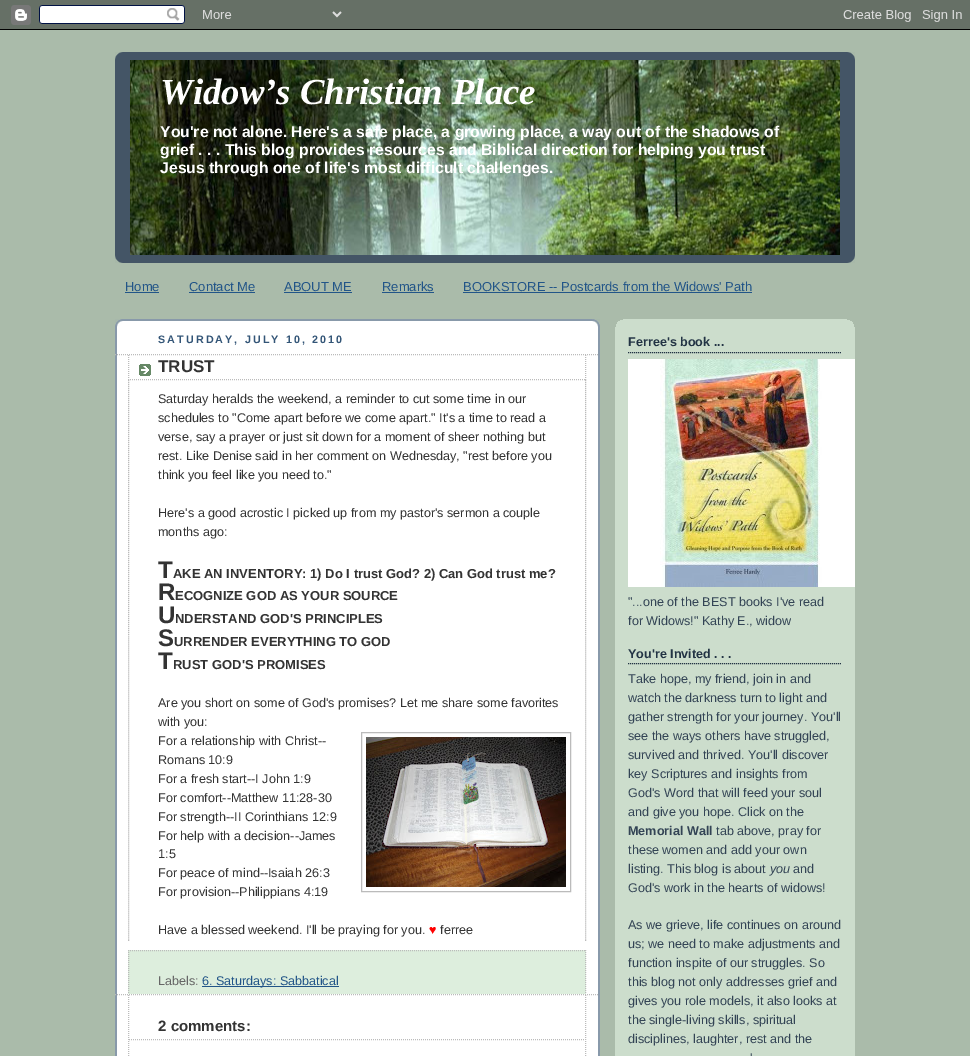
%!PS
<< /PageSize [970 1056] >> setpagedevice
/m/moveto load def
/l/rlineto load def
/s/stroke load def
/C { dup -16 bitshift 255 div exch dup -8 bitshift 255 and 255 div exch 255 and 255 div setrgbcolor } def
/F { [ exch dup neg 0 0 3 -1 roll 0 0 ] selectfont } def
/T { moveto show } def
/R { rectfill } def
/I { 5 dict begin { /h /w /y /x /name } { exch def } forall
  gsave x y translate w h scale
  w h 8 [w 0 0 h 0 0] name (r) file false 3 colorimage grestore end } def
0 1056 translate 1 -1 scale
4 setmiterlimit
16#AABBAA C
0 0 970 1056 R
(1.rgb) 0 0 970 30 I
16#445566 C
115 52 740 211 R
(2.rgb) 115 52 740 8 I
(3.rgb) 115 255 740 8 I
(4.rgb) 130 60 710 195 I
/LiberationSerif-BoldItalic 36.75 F
16#FFFFFF C
(Widow’s Christian Place) 160 104 T
/LiberationSans-Bold 15.75 F
(You're not alone. Here's a safe place, a growing place, a way out of the shadows of) 160 137 T
(grief . . . This blog provides resources and Biblical direction for helping you trust) 160 155 T
(Jesus through one of life's most difficult challenges.) 160 173 T
/LiberationSans-Regular 13 F
16#225588 C
(Home) 125 291 T
125 292 34 1 R
(Contact Me) 189 291 T
189 292 66 1 R
(ABOUT ME) 284 291 T
284 292 68 1 R
(Remarks) 382 291 T
382 292 52 1 R
(BOOKSTORE -- Postcards from the Widows' Path) 463 291 T
463 292 289 1 R
16#FFFFFF C
117 321 481 735 R
(5.rgb) 115 319 485 50 I
(6.rgb) 115 369 485 687 I
/LiberationSans-Bold 10.75 F
16#335577 C
158 343 m 2.1 0 (SATURDAY, JULY 10, 2010) ashow
16#BBBBBB C
[1 1] 0 setdash
115 354.5 m 484 0 l s
115 994.5 m 484 0 l s
(7.rgb) 139 364 12 12 I
585.5 355 m 0 25 l s
128 379.5 m 458 0 l s
128.5 355 m 0 25 l s
/LiberationSans-Bold 17 F
16#333333 C
(TRUST) 158 372 T
16#BBBBBB C
585.5 380 m 0 561 l s
128.5 380 m 0 561 l s
/LiberationSans-Regular 12.6 F
16#333333 C
(Saturday heralds the weekend, a reminder to cut some time in our) 158 403 T
(schedules to "Come apart before we come apart." It's a time to read a) 158 422 T
(verse, say a prayer or just sit down for a moment of sheer nothing but) 158 441 T
(rest. Like Denise said in her comment on Wednesday, "rest before you) 158 460 T
(think you feel like you need to.") 158 479 T
(Here's a good acrostic I picked up from my pastor's sermon a couple) 158 517 T
(months ago:) 158 536 T
/LiberationSans-Bold 24 F
(T) 158 578 T
/LiberationSans-Bold 13 F
(AKE AN INVENTORY: 1\) Do I trust God? 2\) Can God trust me?) 173 578 T
/LiberationSans-Bold 24 F
(R) 158 600 T
/LiberationSans-Bold 13 F
(ECOGNIZE GOD AS YOUR SOURCE) 175 600 T
/LiberationSans-Bold 24 F
(U) 158 623 T
/LiberationSans-Bold 13 F
(NDERSTAND GOD'S PRINCIPLES) 175 623 T
/LiberationSans-Bold 24 F
(S) 158 646 T
/LiberationSans-Bold 13 F
(URRENDER EVERYTHING TO GOD) 174 646 T
/LiberationSans-Bold 24 F
(T) 158 669 T
/LiberationSans-Bold 13 F
(RUST GOD'S PROMISES) 173 669 T
/LiberationSans-Regular 12.6 F
(Are you short on some of God's promises? Let me share some favorites) 158 707 T
(with you:) 158 726 T
(For a relationship with Christ--) 158 745 T
16#BBBBBB C
[] 0 setdash
361.5 732.5 209 159 rectstroke
(8.rgb) 366 737 200 150 I
16#333333 C
(Romans 10:9) 158 764 T
(For a fresh start--I John 1:9) 158 783 T
(For comfort--Matthew 11:28-30) 158 802 T
(For strength--II Corinthians 12:9) 158 821 T
(For help with a decision--James) 158 840 T
(1:5) 158 858 T
(For peace of mind--Isaiah 26:3) 158 877 T
(For provision--Philippians 4:19) 158 896 T
(Have a blessed weekend. I'll be praying for you.) 158 934 T
16#FF0000 C
(♥) 429 934 T
16#333333 C
(ferree) 440 934 T
16#DDEEDD C
128 950 458 44 R
16#BBBBBB C
[1 1] 0 setdash
128 950.5 m 458 0 l s
585.5 950 m 0 44 l s
128.5 950 m 0 44 l s
16#666666 C
(Labels:) 158 985 T
16#225588 C
202 986 137 1 R
(6. Saturdays: Sabbatical) 202 985 T
16#BBBBBB C
585.5 995 m 0 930 l s
128.5 995 m 0 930 l s
129 1039.5 m 456 0 l s
/LiberationSans-Bold 15 F
16#333333 C
(2 comments:) 158 1031 T
16#CCDDCC C
615 319 240 737 R
(9.rgb) 615 319 240 8 I
16#223344 C
628 352.5 m 214 0 l s
/LiberationSans-Bold 12.6 F
(Ferree's book ...) 628 346 T
(10.rgb) 628 359 227 228 I
/LiberationSans-Regular 12.6 F
16#334455 C
("...one of the BEST books I've read) 628 606 T
(for Widows!" Kathy E., widow) 628 625 T
16#223344 C
628 663.5 m 214 0 l s
/LiberationSans-Bold 12.6 F
(You're Invited . . .) 628 658 T
/LiberationSans-Regular 12.6 F
16#334455 C
(Take hope, my friend, join in and) 628 683 T
(watch the darkness turn to light and) 628 702 T
(gather strength for your journey. You'll) 628 721 T
(see the ways others have struggled,) 628 740 T
(survived and thrived. You'll discover) 628 759 T
(key Scriptures and insights from) 628 778 T
(God's Word that will feed your soul) 628 797 T
(and give you hope. Click on the) 628 816 T
/LiberationSans-Bold 12.6 F
(Memorial Wall) 628 835 T
/LiberationSans-Regular 12.6 F
(tab above, pray for) 716 835 T
(these women and add your own) 628 854 T
(listing. This blog is about) 628 873 T
/LiberationSans-Italic 12.6 F
(you) 770 873 T
/LiberationSans-Regular 12.6 F
(and) 793 873 T
(God's work in the hearts of widows!) 628 892 T
(As we grieve, life continues on around) 628 929 T
(us; we need to make adjustments and) 628 948 T
(function inspite of our struggles. So) 628 967 T
(this blog not only addresses grief and) 628 986 T
(gives you role models, it also looks at) 628 1005 T
(the single-living skills, spiritual) 628 1024 T
(disciplines, laughter, rest and the) 628 1043 T
(') 750 1062 T
showpage
